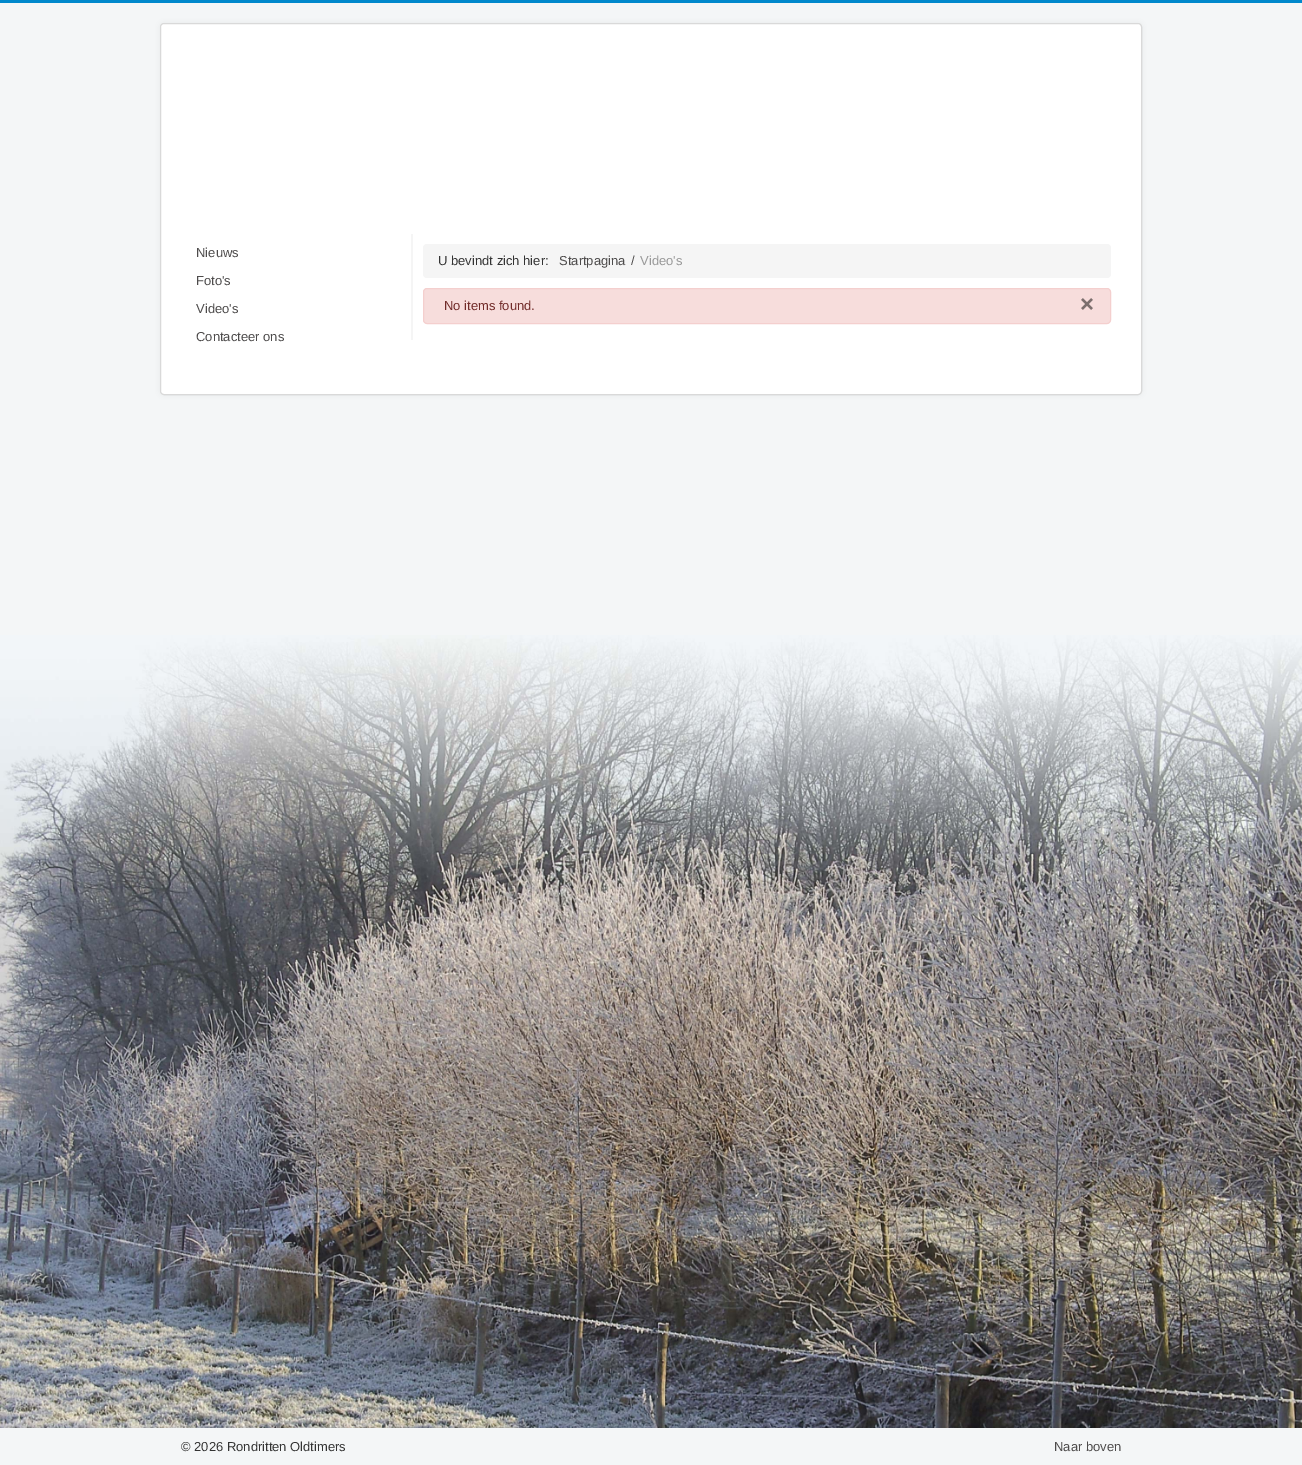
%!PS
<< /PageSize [1302 1465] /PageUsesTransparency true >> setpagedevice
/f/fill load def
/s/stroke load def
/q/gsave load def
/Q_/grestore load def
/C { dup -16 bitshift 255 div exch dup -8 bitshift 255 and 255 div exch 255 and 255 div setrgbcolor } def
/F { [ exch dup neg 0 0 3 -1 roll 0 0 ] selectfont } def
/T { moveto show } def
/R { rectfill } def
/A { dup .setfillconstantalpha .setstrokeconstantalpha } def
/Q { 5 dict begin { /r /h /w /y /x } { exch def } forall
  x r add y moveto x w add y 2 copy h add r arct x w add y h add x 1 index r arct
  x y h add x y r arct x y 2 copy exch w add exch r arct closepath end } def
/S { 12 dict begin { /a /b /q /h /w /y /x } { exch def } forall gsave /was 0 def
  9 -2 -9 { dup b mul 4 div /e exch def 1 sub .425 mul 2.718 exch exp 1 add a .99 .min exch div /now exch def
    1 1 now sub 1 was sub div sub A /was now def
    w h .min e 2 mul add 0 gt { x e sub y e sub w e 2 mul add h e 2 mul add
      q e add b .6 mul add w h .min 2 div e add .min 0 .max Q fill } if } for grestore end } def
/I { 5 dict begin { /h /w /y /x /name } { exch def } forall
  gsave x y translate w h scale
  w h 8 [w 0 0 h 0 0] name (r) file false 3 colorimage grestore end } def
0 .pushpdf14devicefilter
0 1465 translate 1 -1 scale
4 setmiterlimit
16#F4F6F7 C
0 0 1302 1465 R
16#0088CC C
0 0 1302 3 R
16#000000 C
160 23 982 372 4 3 .05 S
16#FFFFFF C
160 23 982 372 4 Q f
0.15 A
16#000000 C
160.5 23.5 981 371 3.5 Q s
/LiberationSans-Regular 13 F
1 A
16#4D4B4B C
(Nieuws) 196 257 T
(Foto's) 196 285 T
(Video's) 196 313 T
(Contacteer ons) 196 341 T
16#F5F5F5 C
411 234 2 106 R
423 244 688 34 4 Q f
16#333333 C
(U bevindt zich hier:) 438 265 T
16#4D4B4B C
(Startpagina) 559 265 T
(/) 631 265 T
16#999999 C
(Video's) 640 265 T
16#F7DDDC C
423.5 288.5 687 35 3.5 Q q f Q_
16#F4CFCE C
s
16#712B29 C
(No items found.) 444 310 T
/LiberationSans-Bold 24 F
16#7C6F6E C
(×) 1080 312 T
(1.rgb) 0 635 1302 793 I
/LiberationSans-Regular 13 F
16#333333 C
(© 2026 Rondritten Oldtimers) 181 1451 T
16#4D4B4B C
(Naar boven) 1054 1451 T
.poppdf14devicefilter showpage
